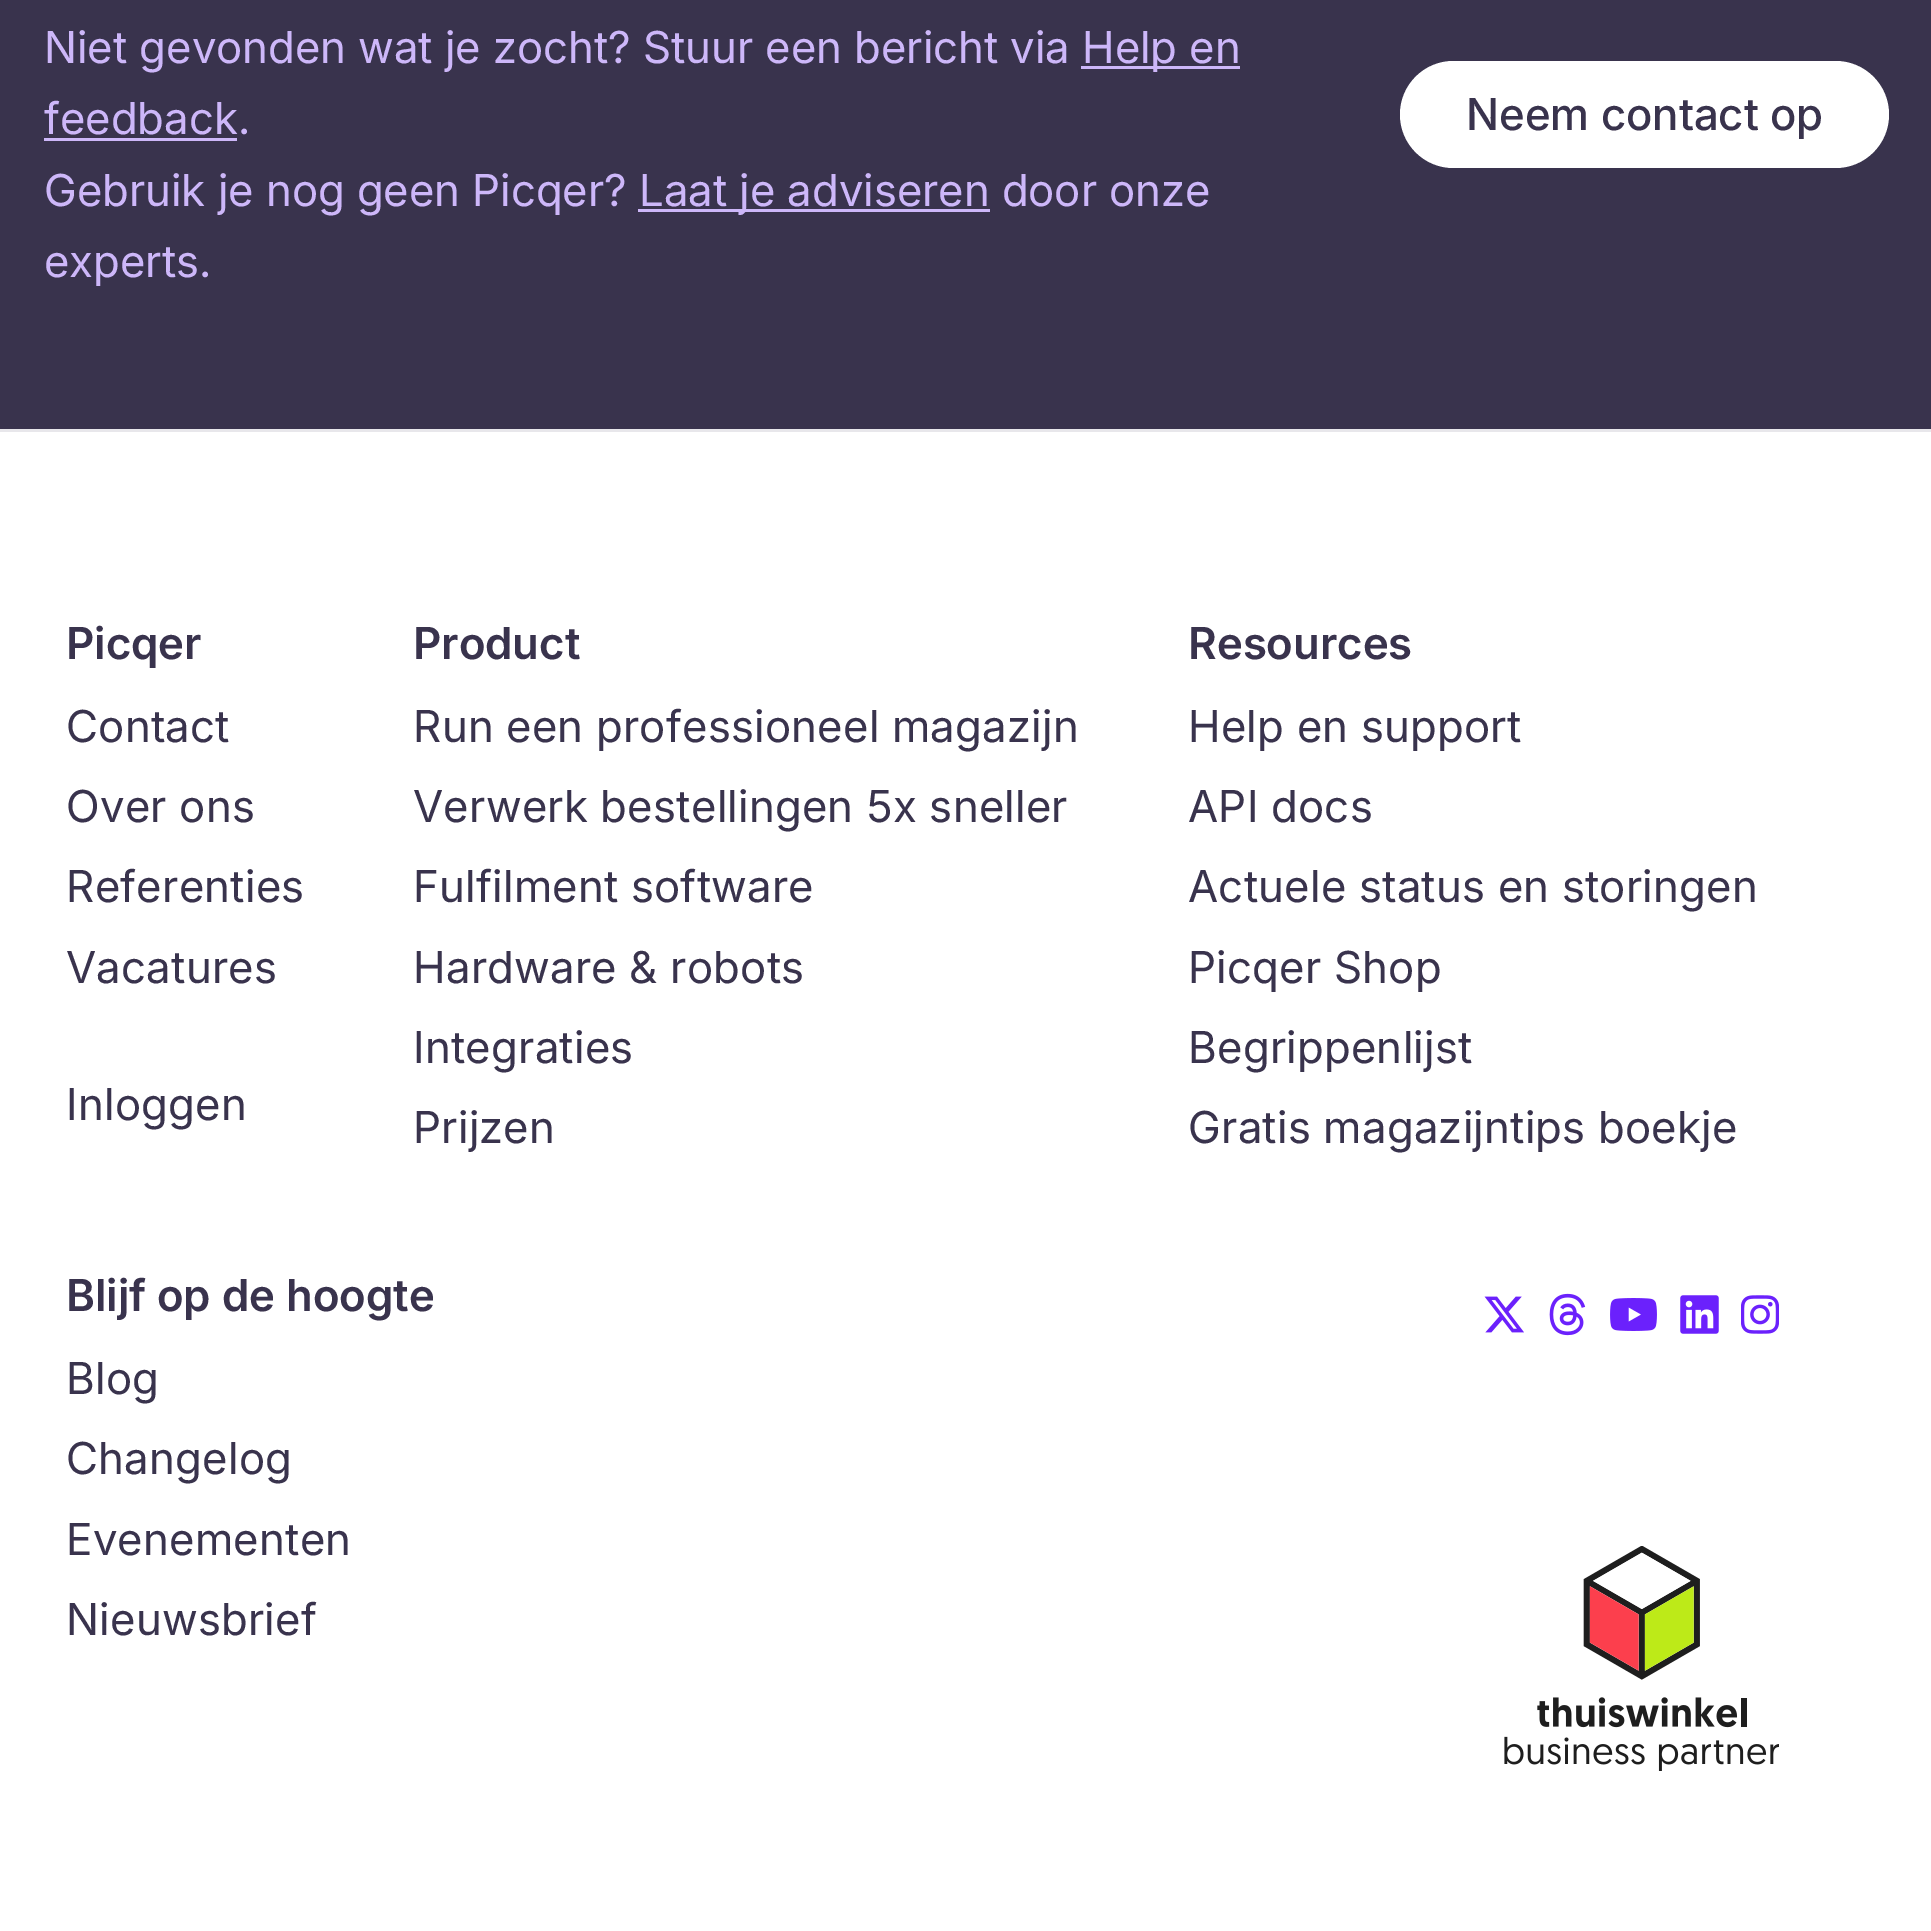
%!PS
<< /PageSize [1931 1931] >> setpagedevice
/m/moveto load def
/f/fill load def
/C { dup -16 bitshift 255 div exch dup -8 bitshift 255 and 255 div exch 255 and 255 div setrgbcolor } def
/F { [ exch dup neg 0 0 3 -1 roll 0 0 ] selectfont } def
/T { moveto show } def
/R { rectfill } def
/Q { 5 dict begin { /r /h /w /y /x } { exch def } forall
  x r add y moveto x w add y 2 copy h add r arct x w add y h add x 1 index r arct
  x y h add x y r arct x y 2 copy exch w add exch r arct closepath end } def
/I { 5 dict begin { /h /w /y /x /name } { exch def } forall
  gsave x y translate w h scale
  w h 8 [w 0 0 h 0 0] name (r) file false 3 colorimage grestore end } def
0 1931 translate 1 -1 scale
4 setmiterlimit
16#FFFFFF C
0 0 1931 1931 R
16#39334D C
0 0 1931 429 R
/Inter-Regular 44 F
16#CDB7F9 C
(Niet gevonden wat je zocht? Stuur een bericht via) 44 63 T
1081 66 159 3 R
(Help en) 1082 63 T
(feedback.) 44 134 T
44 138 193 3 R
(Gebruik je nog geen Picqer?) 44 206 T
638 209 352 3 R
(Laat je adviseren door onze) 639 206 T
(experts.) 44 277 T
16#FFFFFF C
1400 61 489 107 53.5 Q f
/Inter-Medium 44 F
16#39334D C
(Neem contact op) 1466 130 T
16#E8E7EB C
0 429 1931 3 R
/Inter-SemiBold 44 F
16#39334D C
(Picqer) 66 659 T
/Inter-Regular 44 F
66 742 m .25 0 (Contact) ashow
66 822 m .25 0 (Over ons) ashow
66 902 m .25 0 (Referenties) ashow
66 983 m .25 0 (Vacatures) ashow
66 1120 m .25 0 (Inloggen) ashow
/Inter-SemiBold 44 F
(Product) 413 659 T
/Inter-Regular 44 F
413 742 m .25 0 (Run een professioneel magazijn) ashow
413 822 m .25 0 (Verwerk bestellingen 5x sneller) ashow
413 902 m .25 0 (Fulfilment software) ashow
413 983 m .25 0 (Hardware & robots) ashow
413 1063 m .25 0 (Integraties) ashow
413 1143 m .25 0 (Prijzen) ashow
/Inter-SemiBold 44 F
(Resources) 1188 659 T
/Inter-Regular 44 F
1188 742 m .25 0 (Help en support) ashow
1188 822 m .25 0 (API docs) ashow
1188 902 m .25 0 (Actuele status en storingen) ashow
1188 983 m .25 0 (Picqer Shop) ashow
1188 1063 m .25 0 (Begrippenlijst) ashow
1188 1143 m .25 0 (Gratis magazijntips boekje) ashow
/Inter-SemiBold 44 F
(Blijf op de hoogte) 66 1311 T
/Inter-Regular 44 F
66 1394 m .25 0 (Blog) ashow
66 1474 m .25 0 (Changelog) ashow
66 1555 m .25 0 (Evenementen) ashow
66 1635 m .25 0 (Nieuwsbrief) ashow
(1.rgb) 1484 1296 40 37 I
(2.rgb) 1549 1293 37 43 I
(3.rgb) 1610 1298 47 33 I
(4.rgb) 1680 1295 39 39 I
(5.rgb) 1741 1295 38 39 I
(6.rgb) 1504 1546 275 225 I
showpage
